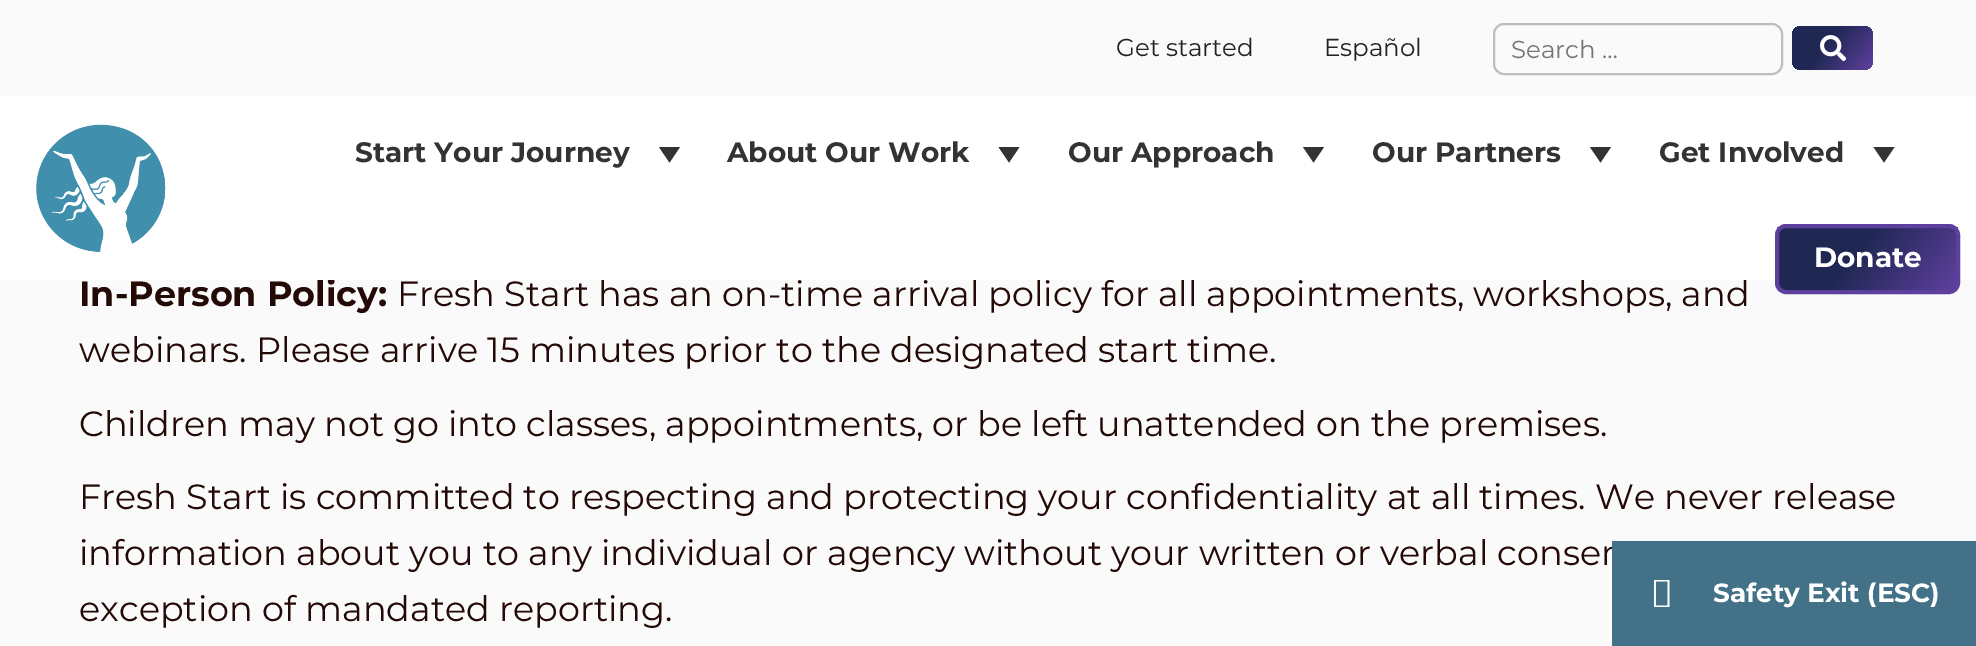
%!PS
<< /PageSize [1976 646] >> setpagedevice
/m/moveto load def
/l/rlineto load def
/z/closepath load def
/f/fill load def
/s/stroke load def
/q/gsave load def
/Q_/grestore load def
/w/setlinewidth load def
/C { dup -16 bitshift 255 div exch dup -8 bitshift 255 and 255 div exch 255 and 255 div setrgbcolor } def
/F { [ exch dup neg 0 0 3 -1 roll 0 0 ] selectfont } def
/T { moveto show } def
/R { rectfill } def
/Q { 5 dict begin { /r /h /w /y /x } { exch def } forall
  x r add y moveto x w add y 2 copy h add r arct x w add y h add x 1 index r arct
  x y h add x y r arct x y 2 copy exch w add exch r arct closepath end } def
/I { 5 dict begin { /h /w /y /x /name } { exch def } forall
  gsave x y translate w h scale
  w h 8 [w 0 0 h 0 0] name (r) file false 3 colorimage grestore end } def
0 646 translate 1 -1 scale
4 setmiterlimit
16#FAFAFA C
0 0 1976 646 R
/Montserrat-Bold 35 F
16#230A06 C
(In-Person Policy:) 79 306 T
/Montserrat-Regular 35 F
(Fresh Start has an on-time arrival policy for all appointments, workshops, and) 397 306 T
16#FFFFFF C
0 96 1976 184 R
/Montserrat-Regular 24.5 F
16#222222 C
(Get started) 1116 56 T
(Español) 1324 56 T
16#BDBDBD C
2 w
1494 24 288 50 10 Q s
16#757575 C
(Search …) 1511 58 T
q 1792 26 81 44 9 Q clip newpath
<< /ShadingType 2 /ColorSpace /DeviceRGB /Coords [1796 21 1868 75] /Extend [true true] /Function << /FunctionType 3 /Domain [0 1] /Functions [<< /FunctionType 2 /Domain [0 1] /C0 [.122 .153 .325] /C1 [.122 .153 .325] /N 1 >> << /FunctionType 2 /Domain [0 1] /C0 [.122 .153 .325] /C1 [.365 .251 .616] /N 1 >> << /FunctionType 2 /Domain [0 1] /C0 [.365 .251 .616] /C1 [.365 .251 .616] /N 1 >>] /Bounds [.42 .99] /Encode [0 1 0 1 0 1] >> >> shfill Q_
(1.rgb) 1820 35 26 26 I
(2.rgb) 36 124 130 128 I
/Montserrat-Bold 28 F
16#333333 C
(Start Your Journey) 355 162 T
680 147 m -10.5 15.5 l -10.5 -15.5 l z f
(About Our Work) 727 162 T
1019.5 147 m -10.5 15.5 l -10.5 -15.5 l z f
(Our Approach) 1068 162 T
1324 147 m -10.5 15.5 l -10.5 -15.5 l z f
(Our Partners) 1372 162 T
1611 147 m -10.5 15.5 l -10.5 -15.5 l z f
(Get Involved) 1659 162 T
1894.5 147 m -10.5 15.5 l -10.5 -15.5 l z f
q
1775 224 185 70 11 Q clip newpath
q 1777 224 m 1 0 l 0 4 l -1 0 l z clip newpath
<< /ShadingType 2 /ColorSpace /DeviceRGB /Coords [1617 142 1761 250] /Extend [true true] /Function << /FunctionType 3 /Domain [0 1] /Functions [<< /FunctionType 2 /Domain [0 1] /C0 [.122 .153 .325] /C1 [.122 .153 .325] /N 1 >> << /FunctionType 2 /Domain [0 1] /C0 [.122 .153 .325] /C1 [.365 .251 .616] /N 1 >> << /FunctionType 2 /Domain [0 1] /C0 [.365 .251 .616] /C1 [.365 .251 .616] /N 1 >>] /Bounds [.42 .99] /Encode [0 1 0 1 0 1] >> >> shfill Q_
q 1957 224 m 1 0 l 0 4 l -1 0 l z clip newpath
<< /ShadingType 2 /ColorSpace /DeviceRGB /Coords [1974 142 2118 250] /Extend [true true] /Function << /FunctionType 3 /Domain [0 1] /Functions [<< /FunctionType 2 /Domain [0 1] /C0 [.122 .153 .325] /C1 [.122 .153 .325] /N 1 >> << /FunctionType 2 /Domain [0 1] /C0 [.122 .153 .325] /C1 [.365 .251 .616] /N 1 >> << /FunctionType 2 /Domain [0 1] /C0 [.365 .251 .616] /C1 [.365 .251 .616] /N 1 >>] /Bounds [.42 .99] /Encode [0 1 0 1 0 1] >> >> shfill Q_
Q_
q 1778 228 m 179 0 l 0 63 l -179 0 l z clip newpath
<< /ShadingType 2 /ColorSpace /DeviceRGB /Coords [1795 205 1939 313] /Extend [true true] /Function << /FunctionType 3 /Domain [0 1] /Functions [<< /FunctionType 2 /Domain [0 1] /C0 [.122 .153 .325] /C1 [.122 .153 .325] /N 1 >> << /FunctionType 2 /Domain [0 1] /C0 [.122 .153 .325] /C1 [.365 .251 .616] /N 1 >> << /FunctionType 2 /Domain [0 1] /C0 [.365 .251 .616] /C1 [.365 .251 .616] /N 1 >>] /Bounds [.42 .99] /Encode [0 1 0 1 0 1] >> >> shfill Q_
16#5D409D C
4 w
1777 226 181 66 9 Q s
16#FFFFFF C
(Donate) 1814 267 T
/Montserrat-Regular 35 F
16#230A06 C
(webinars. Please arrive 15 minutes prior to the designated start time.) 79 362 T
(Children may not go into classes, appointments, or be left unattended on the premises.) 79 436 T
(Fresh Start is committed to respecting and protecting your confidentiality at all times. We never release) 79 509 T
(information about you to any individual or agency without your written or verbal consen) 79 565 T
(exception of mandated reporting.) 79 621 T
16#437188 C
1612 541 364 105 R
16#FFFFFF C
1654 607 m 0 -27 l 15.5 0 l 0 27 l z 1656 605.5 m 11.5 0 l 0 -24 l -11.5 0 l z f
/Montserrat-Bold 26.25 F
(Safety Exit \(ESC\)) 1713 602 T
showpage
